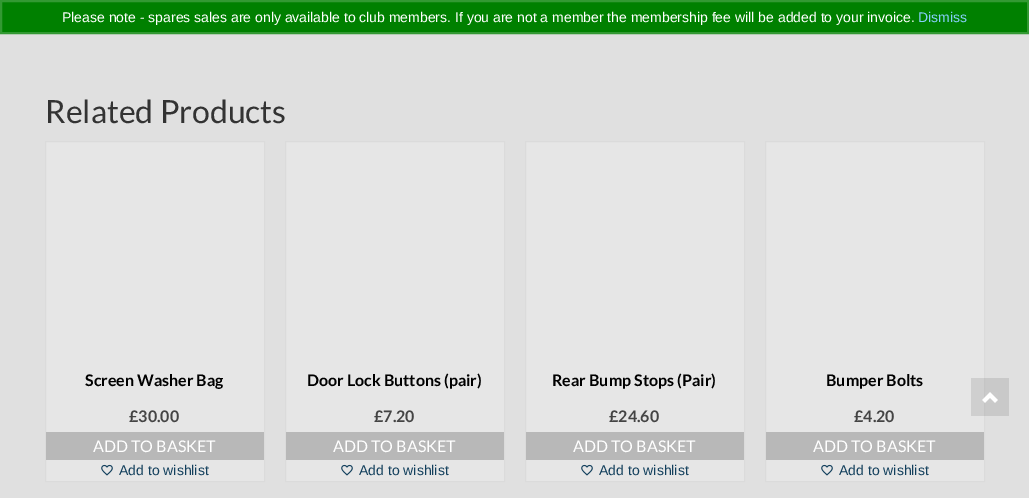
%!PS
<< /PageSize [1029 498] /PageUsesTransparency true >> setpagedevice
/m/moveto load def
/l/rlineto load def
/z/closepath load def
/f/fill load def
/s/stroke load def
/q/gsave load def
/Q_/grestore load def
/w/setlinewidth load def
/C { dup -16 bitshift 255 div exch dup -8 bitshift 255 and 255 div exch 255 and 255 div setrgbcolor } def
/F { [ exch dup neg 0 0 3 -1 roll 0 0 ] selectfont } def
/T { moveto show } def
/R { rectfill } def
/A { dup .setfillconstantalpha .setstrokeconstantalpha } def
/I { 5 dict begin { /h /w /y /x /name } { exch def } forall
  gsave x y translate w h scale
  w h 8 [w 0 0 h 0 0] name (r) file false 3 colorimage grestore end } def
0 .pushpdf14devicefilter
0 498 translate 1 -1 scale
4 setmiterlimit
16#E0E0E0 C
0 0 1029 498 R
16#008000 C
1 1 m 1027 0 l 0 32 l -1027 0 l z q f Q_
16#339933 C
2 w
s
/LiberationSans-Regular 14 F
16#FFFFFF C
(Please note - spares sales are only available to club members. If you are not a member the membership fee will be added to your invoice.) 62 22 T
16#87CEFA C
(Dismiss) 918 22 T
/Lato-Regular 32 F
16#333333 C
(Related Products) 45 123 T
16#E6E6E6 C
45.5 141.5 m 219 0 l 0 340 l -219 0 l z q f Q_
16#DBDBDB C
1 w
s
/Lato-Bold 16 F
16#000000 C
(Screen Washer Bag) 85 386 T
16#444444 C
(£30.00) 129 422 T
16#B8B8B8 C
46 432 218 28 R
/Lato-Regular 16 F
16#FFFFFF C
(ADD TO BASKET) 93 452 T
(1.rgb) 101 464 12 12 I
/LiberationSans-Regular 14 F
16#123F5C C
(Add to wishlist) 119 475 T
16#E6E6E6 C
285.5 141.5 m 219 0 l 0 340 l -219 0 l z q f Q_
16#DBDBDB C
s
/Lato-Bold 16 F
16#000000 C
(Door Lock Buttons \(pair\)) 307 386 T
16#444444 C
(£7.20) 374 422 T
16#B8B8B8 C
286 432 218 28 R
/Lato-Regular 16 F
16#FFFFFF C
(ADD TO BASKET) 333 452 T
(1.rgb) 341 464 12 12 I
/LiberationSans-Regular 14 F
16#123F5C C
(Add to wishlist) 359 475 T
16#E6E6E6 C
525.5 141.5 m 219 0 l 0 340 l -219 0 l z q f Q_
16#DBDBDB C
s
/Lato-Bold 16 F
16#000000 C
(Rear Bump Stops \(Pair\)) 552 386 T
16#444444 C
(£24.60) 609 422 T
16#B8B8B8 C
526 432 218 28 R
/Lato-Regular 16 F
16#FFFFFF C
(ADD TO BASKET) 573 452 T
(1.rgb) 581 464 12 12 I
/LiberationSans-Regular 14 F
16#123F5C C
(Add to wishlist) 599 475 T
16#E6E6E6 C
765.5 141.5 m 219 0 l 0 340 l -219 0 l z q f Q_
16#DBDBDB C
s
/Lato-Bold 16 F
16#000000 C
(Bumper Bolts) 826 386 T
16#444444 C
(£4.20) 854 422 T
16#B8B8B8 C
766 432 218 28 R
/Lato-Regular 16 F
16#FFFFFF C
(ADD TO BASKET) 813 452 T
(1.rgb) 821 464 12 12 I
/LiberationSans-Regular 14 F
16#123F5C C
(Add to wishlist) 839 475 T
0.1 A
16#000000 C
971 378 38 38 R
1 A
(2.rgb) 982 392 16 11 I
.poppdf14devicefilter showpage
